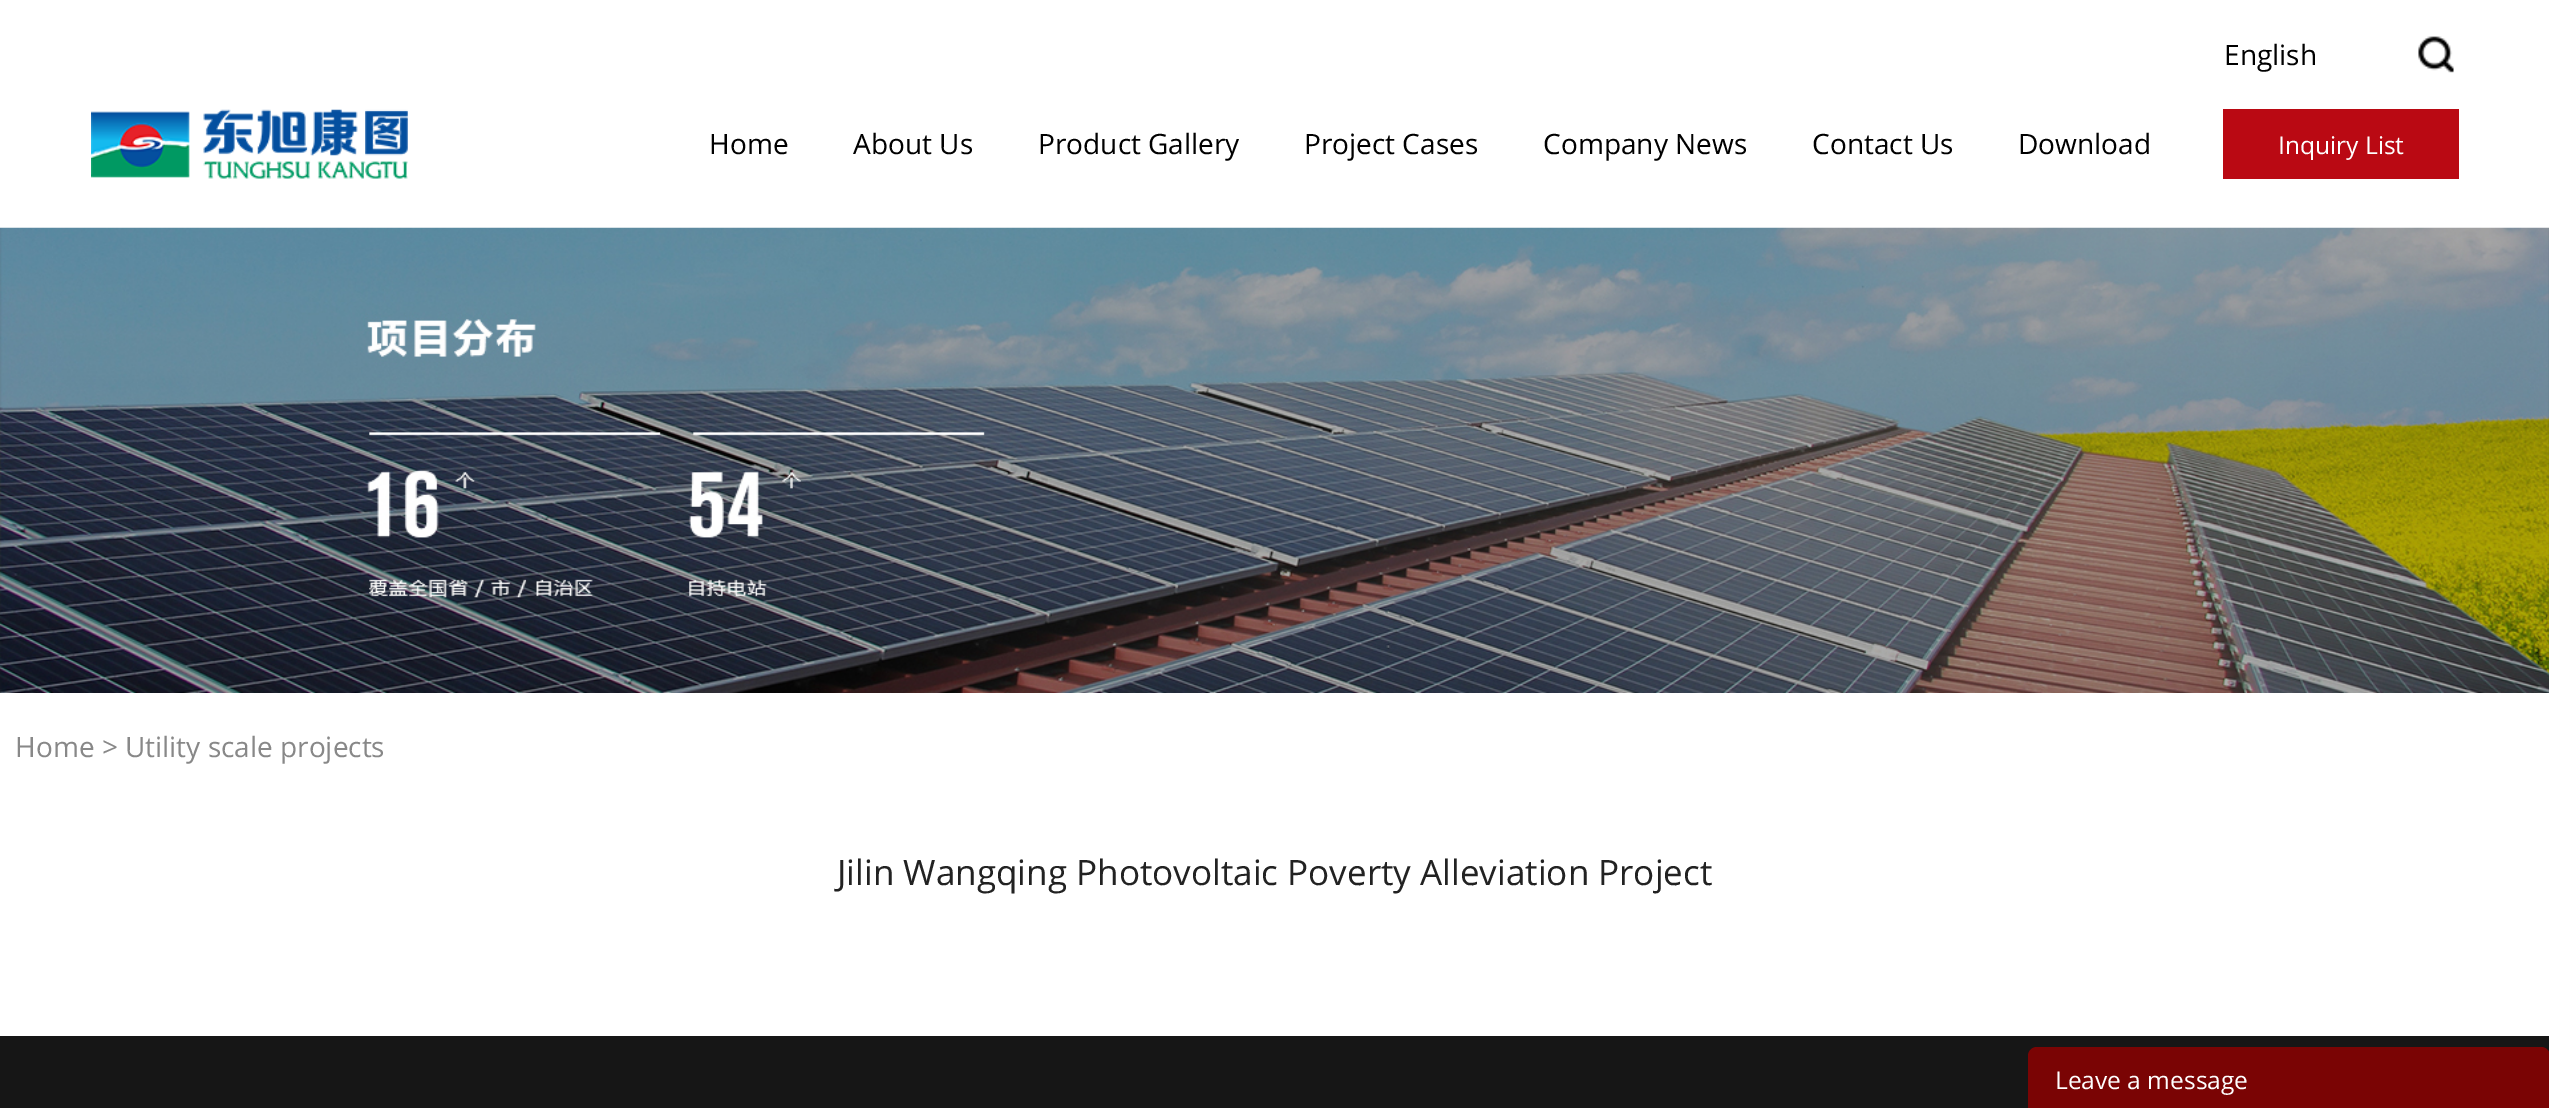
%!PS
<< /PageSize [2549 1108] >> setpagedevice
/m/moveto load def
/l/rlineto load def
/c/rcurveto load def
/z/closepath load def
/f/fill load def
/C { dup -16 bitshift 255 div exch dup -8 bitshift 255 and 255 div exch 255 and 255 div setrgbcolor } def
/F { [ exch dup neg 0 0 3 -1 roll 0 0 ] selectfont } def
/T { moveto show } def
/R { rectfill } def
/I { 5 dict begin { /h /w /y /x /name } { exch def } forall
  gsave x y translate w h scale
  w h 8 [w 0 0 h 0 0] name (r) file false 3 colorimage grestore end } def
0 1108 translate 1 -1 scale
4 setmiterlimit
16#FFFFFF C
0 0 2549 1108 R
/OpenSans-Regular 28 F
16#000000 C
(English) 2224 65 T
(1.rgb) 2418 36 36 37 I
(2.rgb) 91 109 317 70 I
(Home) 709 154 T
(About Us) 853 154 T
(Product Gallery) 1038 154 T
(Project Cases) 1304 154 T
(Company News) 1543 154 T
(Contact Us) 1812 154 T
(Download) 2018 154 T
16#BA0913 C
2223 109 236 70 R
/OpenSans-Regular 24.5 F
16#FFFFFF C
(Inquiry List) 2278 154 T
(3.rgb) 0 227 2549 466 I
/OpenSans-Regular 28 F
16#888888 C
(Home > Utility scale projects) 15 757 T
/OpenSans-Regular 35 F
16#222222 C
(Jilin Wangqing Photovoltaic Poverty Alleviation Project) 837 885 T
16#161616 C
0 1036 2549 72 R
16#7A0404 C
2037 1047 m 504 0 l 5 0 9 4 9 9 c 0 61 l -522 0 l 0 -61 l 0 -5 4 -9 9 -9 c z f
/OpenSans-Regular 24.5 F
16#FFFFFF C
(Leave a message) 2055 1089 T
showpage
